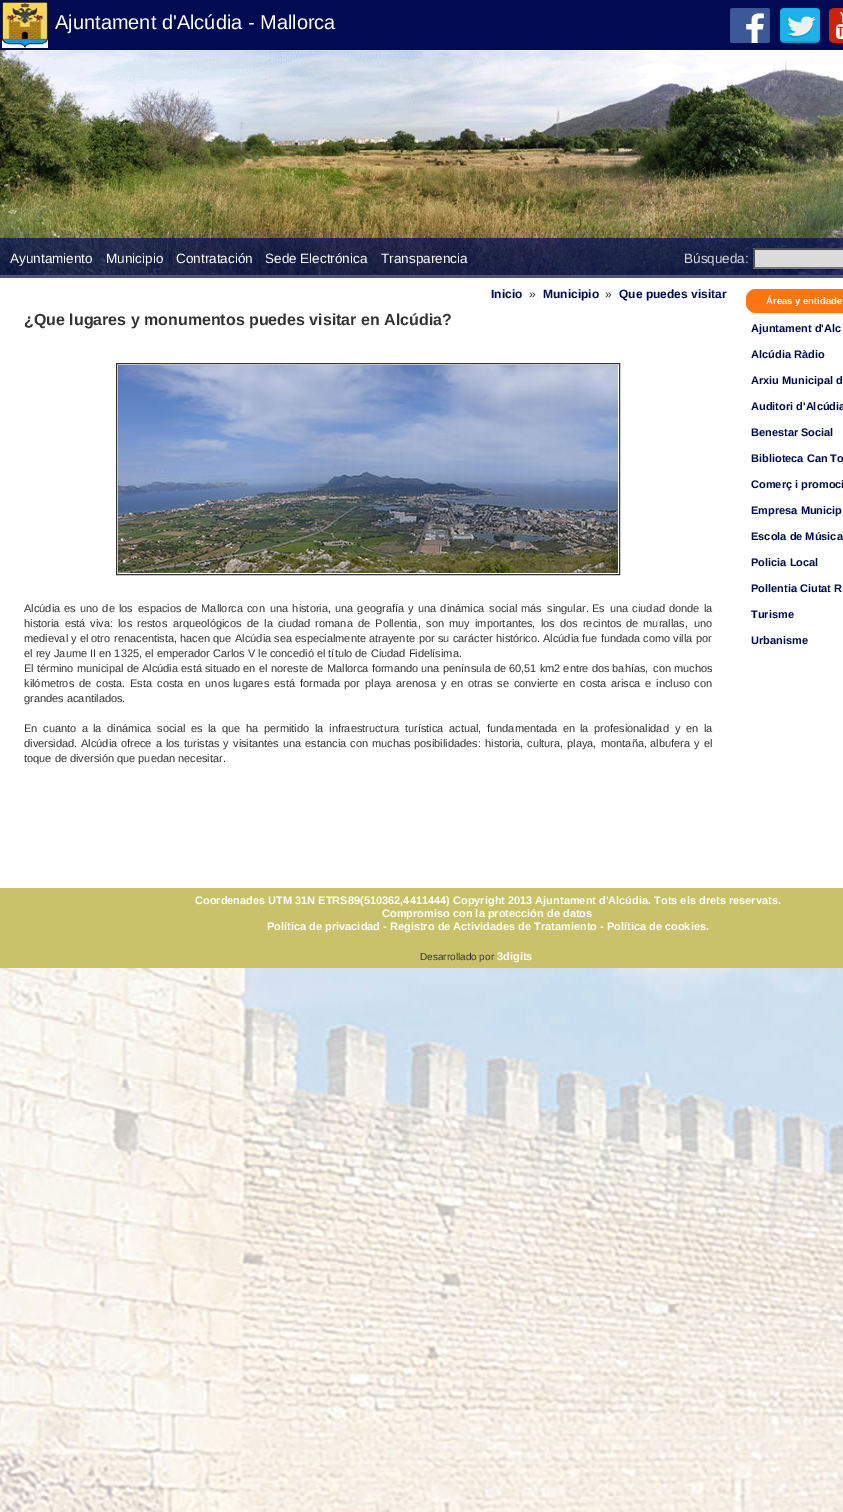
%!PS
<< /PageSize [843 1512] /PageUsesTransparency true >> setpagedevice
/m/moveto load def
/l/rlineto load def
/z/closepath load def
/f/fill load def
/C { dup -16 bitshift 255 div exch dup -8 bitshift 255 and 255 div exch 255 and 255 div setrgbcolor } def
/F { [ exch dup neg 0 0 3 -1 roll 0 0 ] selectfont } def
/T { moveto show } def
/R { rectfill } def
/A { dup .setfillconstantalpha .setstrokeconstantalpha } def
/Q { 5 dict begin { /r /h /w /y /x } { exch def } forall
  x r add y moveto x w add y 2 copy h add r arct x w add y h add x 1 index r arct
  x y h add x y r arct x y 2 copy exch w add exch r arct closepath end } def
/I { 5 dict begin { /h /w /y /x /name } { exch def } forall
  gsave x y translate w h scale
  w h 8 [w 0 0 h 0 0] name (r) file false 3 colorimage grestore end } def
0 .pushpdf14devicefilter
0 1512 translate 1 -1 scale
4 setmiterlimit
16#FFFFFF C
0 0 843 1512 R
(1.rgb) 0 968 843 544 I
16#000B52 C
0 0 843 50 R
(2.rgb) 2 2 46 46 I
/LiberationSans-Regular 20 F
16#FFFFFF C
(Ajuntament d'Alcúdia - Mallorca) 55 29 T
(3.rgb) 730 8 40 35 I
(4.rgb) 780 8 40 35 I
(5.rgb) 829 8 14 35 I
(6.rgb) 0 50 843 225 I
0.7 A
16#000B52 C
0 238 843 40 R
/LiberationSans-Regular 13.5 F
1 A
16#FFFFFF C
(Ayuntamiento) 10 263 T
(Municipio) 106 263 T
(Contratación) 176 263 T
(Sede Electrónica) 265 263 T
(Transparencia) 381 263 T
16#DBDBDB C
(Búsqueda:) 684 263 T
753 248 90 21 R
16#4F4F4F C
753 248 m 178 0 l -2 2 l -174 0 l z f
16#767676 C
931 269 m -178 0 l 2 -2 l 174 0 l z f
16#4F4F4F C
753 269 m 0 -21 l 2 2 l 0 17 l z f
/LiberationSans-Bold 12 F
16#000B52 C
(Inicio) 491 298 T
/LiberationSans-Regular 12 F
16#333333 C
(») 529 298 T
/LiberationSans-Bold 12 F
16#000B52 C
(Municipio) 543 298 T
/LiberationSans-Regular 12 F
16#333333 C
(») 605 298 T
/LiberationSans-Bold 12 F
16#000B52 C
(Que puedes visitar) 619 298 T
/LiberationSans-Bold 16 F
16#333333 C
(¿Que lugares y monumentos puedes visitar en Alcúdia?) 24 325 T
116.5 363.5 503 211 rectstroke
(7.rgb) 118 365 500 208 I
/LiberationSans-Regular 11 F
24 612 m 1 0 32 (Alcúdia es) widthshow
80 612 m 1 0 32 (uno de los) widthshow
(espacios) 138 612 T
185 612 m 1 0 32 (de Mallorca con) widthshow
270 612 m 1 0 32 (una historia) widthshow
(,) 328 612 T
335 612 m 1 0 32 (una geografía) widthshow
(y) 408 612 T
418 612 m 1 0 32 (una dinámica) widthshow
489 612 m 1 0 32 (social más) widthshow
(singular.) 547 612 T
(Es) 592 612 T
610 612 m 1 0 32 (una ciudad donde) widthshow
(la) 704 612 T
24 627 m 2 0 32 (historia está viva) widthshow
(:) 110 627 T
118 627 m 2 0 32 (los restos) widthshow
(arqueológicos) 173 627 T
247 627 m 2 0 32 (de la ciudad romana) widthshow
358 627 m 2 0 32 (de Pollentia) widthshow
(,) 418 627 T
(son) 426 627 T
(muy) 449 627 T
475 627 m 2 0 32 (importantes, los) widthshow
560 627 m 2 0 32 (dos recintos) widthshow
626 627 m 2 0 32 (de murallas) widthshow
(,) 685 627 T
(uno) 694 627 T
(medieval) 24 642 T
(y el otro) 71 642 T
(renacentista) 114 642 T
(, hacen que) 174 642 T
(Alcúdia sea especialmente atrayente) 235 642 T
(por su carácter) 419 642 T
(histórico. Alcúdia fue fundada como villa) 496 642 T
(por) 696 642 T
(el rey Jaume II en 1325, el emperador Carlos V le concedió el título de Ciudad Fidelísima.) 24 657 T
(El término) 24 672 T
(municipal de Alcúdia) 77 672 T
(está situado en el) 181 672 T
(noreste de) 271 672 T
(Mallorca formando una) 327 672 T
(península de) 443 672 T
(60,51 km2 entre dos bahías,) 509 672 T
(con muchos) 653 672 T
(kilómetros) 24 687 T
79 687 m 2 0 32 (de costa) widthshow
(.) 122 687 T
130 687 m 2 0 32 (Esta costa) widthshow
188 687 m 2 0 32 (en unos) widthshow
(lugares) 233 687 T
274 687 m 2 0 32 (está formada) widthshow
344 687 m 2 0 32 (por playa) widthshow
(arenosa) 396 687 T
(y) 441 687 T
451 687 m 2 0 32 (en otras) widthshow
497 687 m 2 0 32 (se convierte en) widthshow
(costa) 580 687 T
(arisca) 611 687 T
645 687 m 2 0 32 (e incluso) widthshow
(con) 694 687 T
(grandes acantilados.) 24 702 T
24 732 m 2.5 0 32 (En cuanto a) widthshow
93 732 m 2.5 0 32 (la dinámica) widthshow
157 732 m 2.5 0 32 (social es) widthshow
208 732 m 2.5 0 32 (la que ha permitido) widthshow
315 732 m 2.5 0 32 (la infraestructura turística) widthshow
(actual,) 449 732 T
487 732 m 2.5 0 32 (fundamentada en) widthshow
580 732 m 2.5 0 32 (la profesionalidad) widthshow
(y) 675 732 T
686 732 m 2.5 0 32 (en la) widthshow
(diversidad.) 24 747 T
(Alcúdia) 81 747 T
121 747 m 1 0 32 (ofrece a los turistas) widthshow
(y) 223 747 T
233 747 m 1 0 32 (visitantes una estancia) widthshow
350 747 m 1 0 32 (con muchas) widthshow
(posibilidades:) 414 747 T
(historia,) 485 747 T
(cultura,) 527 747 T
(playa,) 567 747 T
(montaña,) 601 747 T
(albufera) 650 747 T
(y) 694 747 T
(el) 704 747 T
(toque de diversión que puedan necesitar.) 24 762 T
16#FF750F C
746 289 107 24 10 Q f
/LiberationSans-Bold 9.5 F
16#FFFFFF C
(Áreas y entidade) 766 304 T
/LiberationSans-Bold 11 F
16#000B52 C
(Ajuntament d'Alc) 751 332 T
(Alcúdia Ràdio) 751 358 T
(Arxiu Municipal d) 751 384 T
(Auditori d'Alcúdia) 751 410 T
(Benestar Social) 751 436 T
(Biblioteca Can To) 751 462 T
(Comerç i promoci) 751 488 T
(Empresa Municip) 751 514 T
(Escola de Música) 751 540 T
(Policia Local) 751 566 T
(Pollentia Ciutat R) 751 592 T
(Turisme) 751 618 T
(Urbanisme) 751 644 T
16#C9C26B C
0 888 843 80 R
16#FFFFFF C
(Coordenades UTM 31N ETRS89\(510362,4411444\) Copyright 2013 Ajuntament d'Alcúdia. Tots els drets reservats.) 195 904 T
(Compromiso con la protección de datos) 382 917 T
(Política de privacidad - Registro de Actividades de Tratamiento - Política de cookies.) 267 930 T
/LiberationSans-Regular 10 F
16#333333 C
(Desarrollado por) 420 960 T
/LiberationSans-Bold 11 F
16#FFFFFF C
(3digits) 497 960 T
.poppdf14devicefilter showpage
